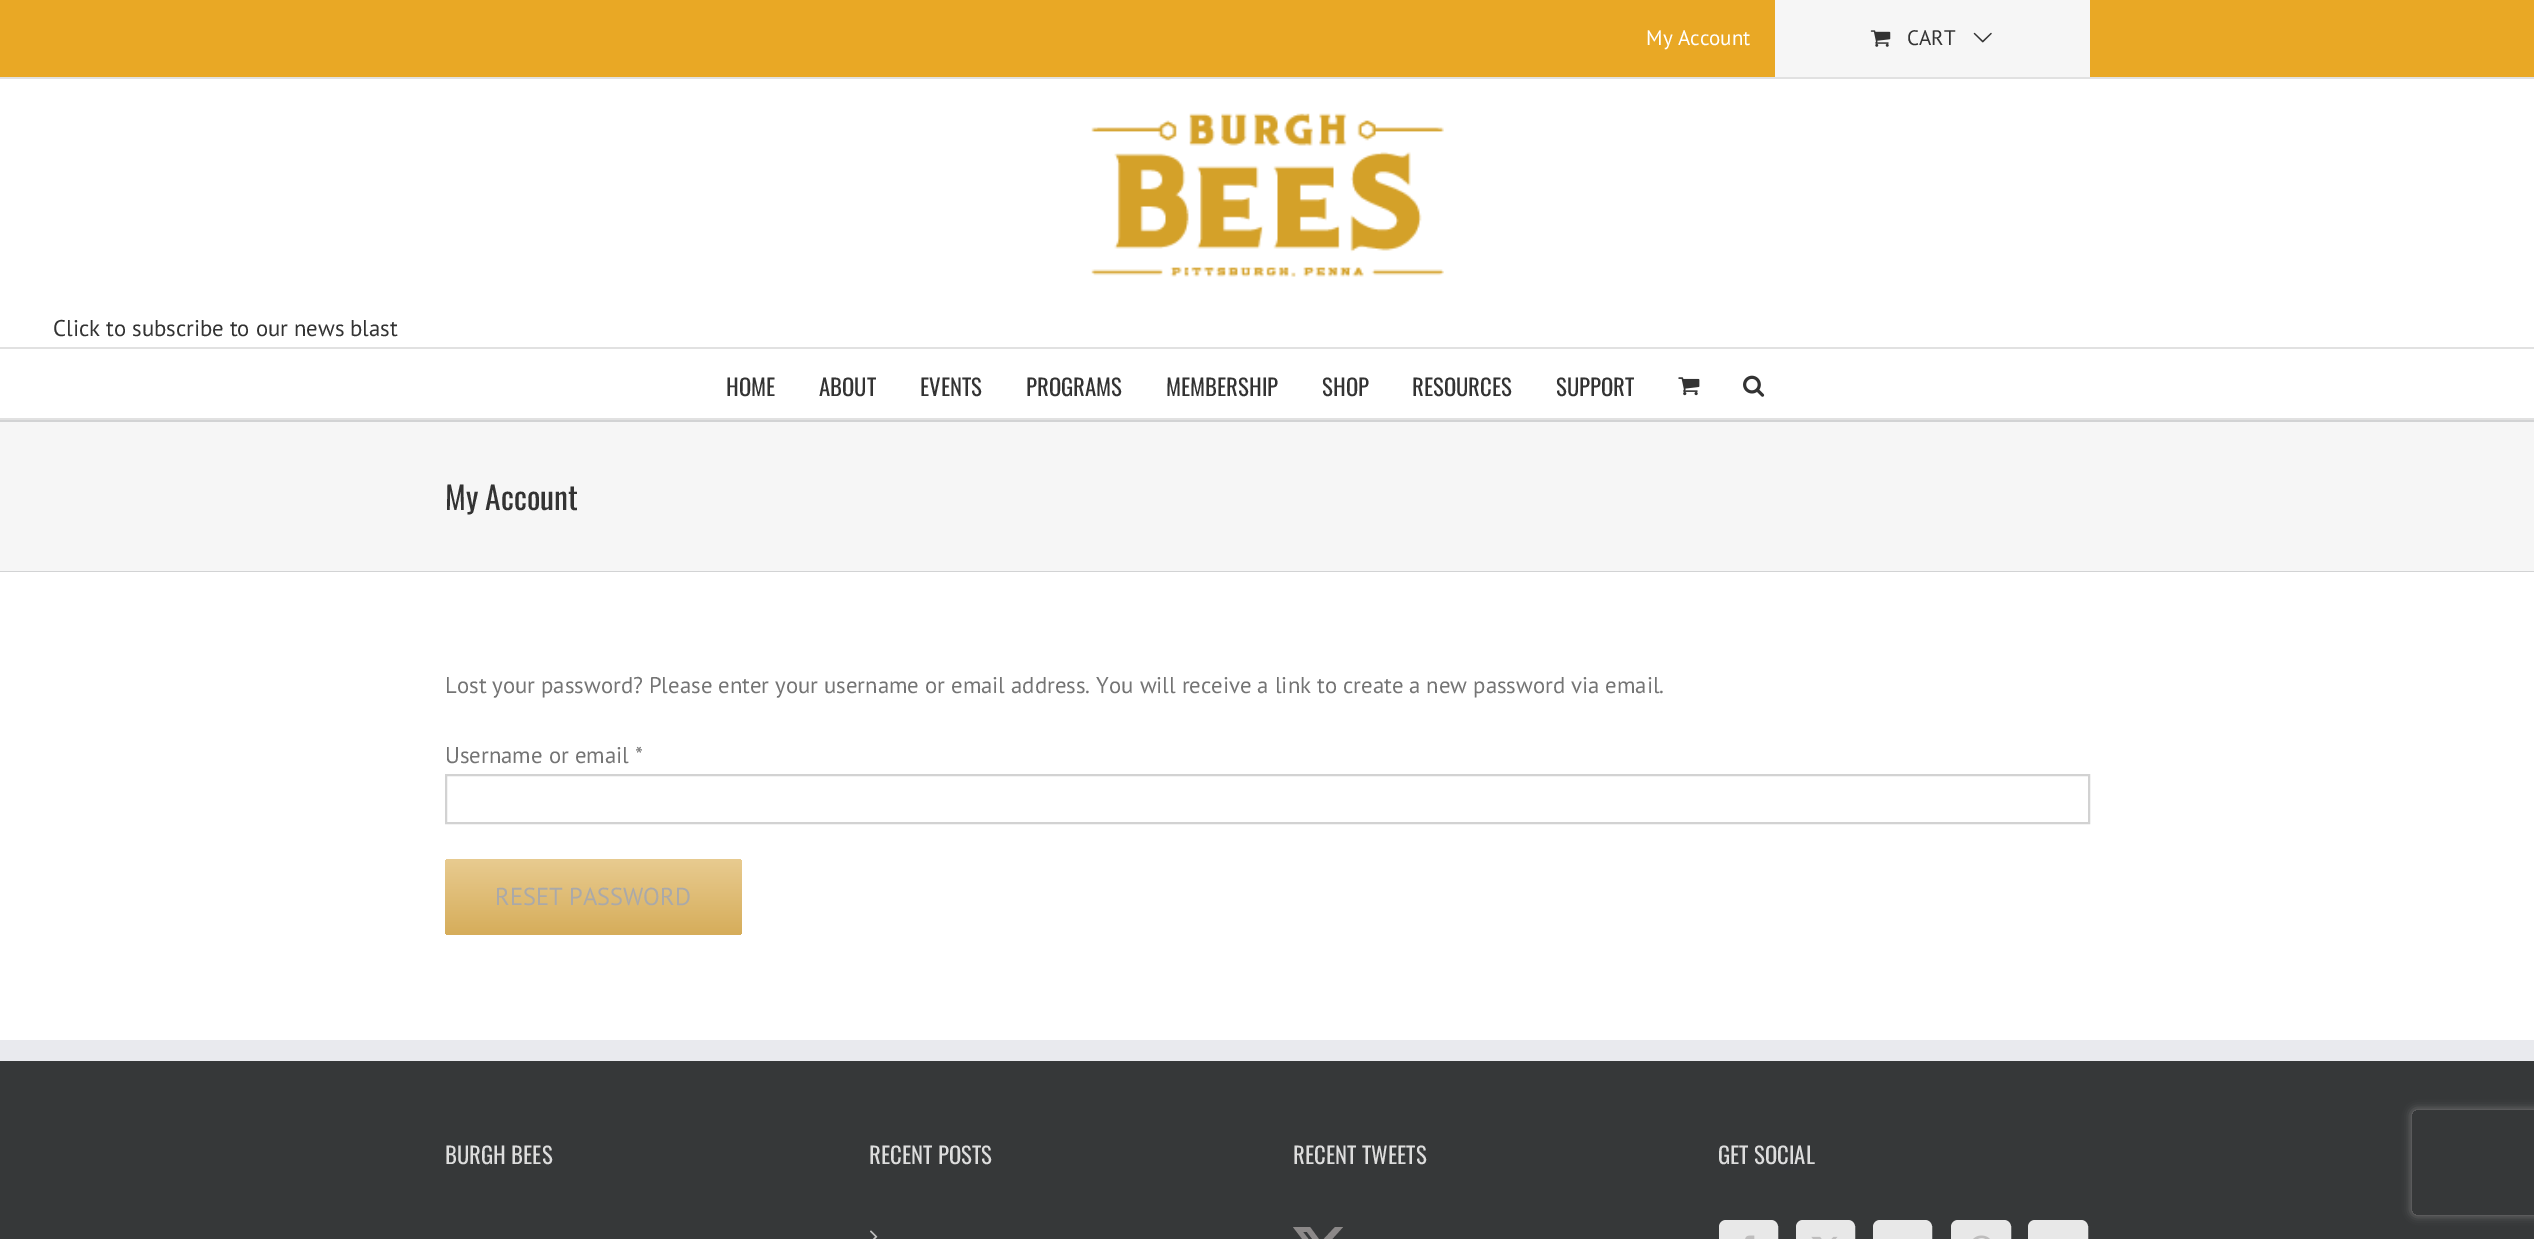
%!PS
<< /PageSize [2534 1239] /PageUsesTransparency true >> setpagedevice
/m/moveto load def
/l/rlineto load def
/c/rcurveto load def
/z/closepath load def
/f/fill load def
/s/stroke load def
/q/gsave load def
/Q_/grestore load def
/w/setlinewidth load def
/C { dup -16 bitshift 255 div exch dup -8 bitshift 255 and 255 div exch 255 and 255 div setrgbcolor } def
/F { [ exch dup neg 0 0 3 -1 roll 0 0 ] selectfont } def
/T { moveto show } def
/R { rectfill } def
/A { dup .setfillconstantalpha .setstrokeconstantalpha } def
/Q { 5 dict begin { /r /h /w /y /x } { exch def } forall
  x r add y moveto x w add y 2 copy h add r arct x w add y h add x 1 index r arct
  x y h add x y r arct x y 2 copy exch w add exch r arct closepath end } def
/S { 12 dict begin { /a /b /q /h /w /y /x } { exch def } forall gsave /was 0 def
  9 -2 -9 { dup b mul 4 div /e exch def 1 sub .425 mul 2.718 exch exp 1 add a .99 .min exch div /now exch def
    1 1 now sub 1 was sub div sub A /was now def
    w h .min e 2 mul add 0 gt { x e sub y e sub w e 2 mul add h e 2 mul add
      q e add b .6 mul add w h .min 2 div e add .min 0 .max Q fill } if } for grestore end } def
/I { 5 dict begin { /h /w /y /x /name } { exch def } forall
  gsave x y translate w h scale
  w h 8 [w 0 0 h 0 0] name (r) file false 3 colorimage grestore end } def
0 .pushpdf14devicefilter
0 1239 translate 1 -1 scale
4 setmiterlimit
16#FFFFFF C
0 0 2534 1239 R
16#E9A825 C
0 0 2534 77 R
16#E1E1E1 C
0 77 2534 2 R
/PTSans-Regular 21 F
16#FFFFFF C
(My Account) 1646 45 T
16#F6F6F6 C
1775 0 315 77 R
(1.rgb) 1870 30 21 17 I
16#333333 C
(CART) 1907 45 T
(2.rgb) 1973 32 19 11 I
16#E1E1E1 C
0 347 2534 2 R
(3.rgb) 1091 113 353 164 I
/PTSans-Regular 22.75 F
16#333333 C
(Click to subscribe to our news blast) 53 336 T
16#E1E1E1 C
0 418 2534 2 R
/Oswald-Regular 22.75 F
16#333333 C
(HOME) 726 396 T
(ABOUT) 819 396 T
(EVENTS) 920 396 T
(PROGRAMS) 1026 396 T
(MEMBERSHIP) 1166 396 T
(SHOP) 1322 396 T
(RESOURCES) 1412 396 T
(SUPPORT) 1556 396 T
(4.rgb) 1678 377 22 19 I
(5.rgb) 1743 375 22 22 I
16#F6F6F6 C
0 422 2534 149 R
16#D2D3D4 C
0 420 2534 2 R
0 571 2534 1 R
/Oswald-Regular 31.5 F
16#333333 C
(My Account) 445 510 T
/PTSans-Regular 22.75 F
16#747474 C
(Lost your password? Please enter your username or email address. You will receive a link to create a new password via email.) 445 693 T
(Username or email *) 445 763 T
16#D2D2D2 C
2 w
446 775 1643 48 rectstroke
q 445 859 297 76 4 Q clip newpath
<< /ShadingType 2 /ColorSpace /DeviceRGB /Coords [593 859 593 935] /Extend [true true] /Function << /FunctionType 2 /Domain [0 1] /C0 [.91 .796 .565] /C1 [.839 .678 .353] /N 1 >> >> shfill Q_
/PTSans-Regular 24.5 F
16#AAA9A9 C
(RESET PASSWORD) 495 905 T
16#363839 C
0 1061 2534 178 R
16#E9EAEE C
0 1040 2534 21 R
/Oswald-Regular 22.75 F
16#DDDDDD C
(BURGH BEES) 445 1164 T
(RECENT POSTS) 869 1164 T
(6.rgb) 870 1230 8 9 I
(RECENT TWEETS) 1293 1164 T
16#8C8989 C
1335 1227 m 8 0 l -18 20 l 21 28 l -16 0 l -13 -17 l -15 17 l -8 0 l 19 -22 l -20 -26 l 17 0 l 11 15 l z 1332 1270 m 4 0 l -29 -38 l -4 0 l z f
16#DDDDDD C
(GET SOCIAL) 1718 1164 T
16#E8E8E8 C
1720 1221 57 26 6 Q q f Q_
s
(7.rgb) 1745 1235 10 4 I
1797 1221 57 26 6 Q q f Q_
s
(8.rgb) 1811 1236 27 3 I
1874 1221 57 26 6 Q q f Q_
s
1952 1221 58 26 6 Q q f Q_
s
(9.rgb) 1973 1235 17 4 I
2029 1221 58 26 6 Q q f Q_
s
q
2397 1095 m 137 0 l 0 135 l -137 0 l z 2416 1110 m 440 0 l 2 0 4 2 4 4 c 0 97 l 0 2 -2 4 -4 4 c -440 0 l -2 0 -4 -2 -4 -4 c 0 -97 l 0 -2 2 -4 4 -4 c z eoclip newpath
16#808080 C
2412 1110 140 105 4 4.5 1 S
Q_
.poppdf14devicefilter showpage
